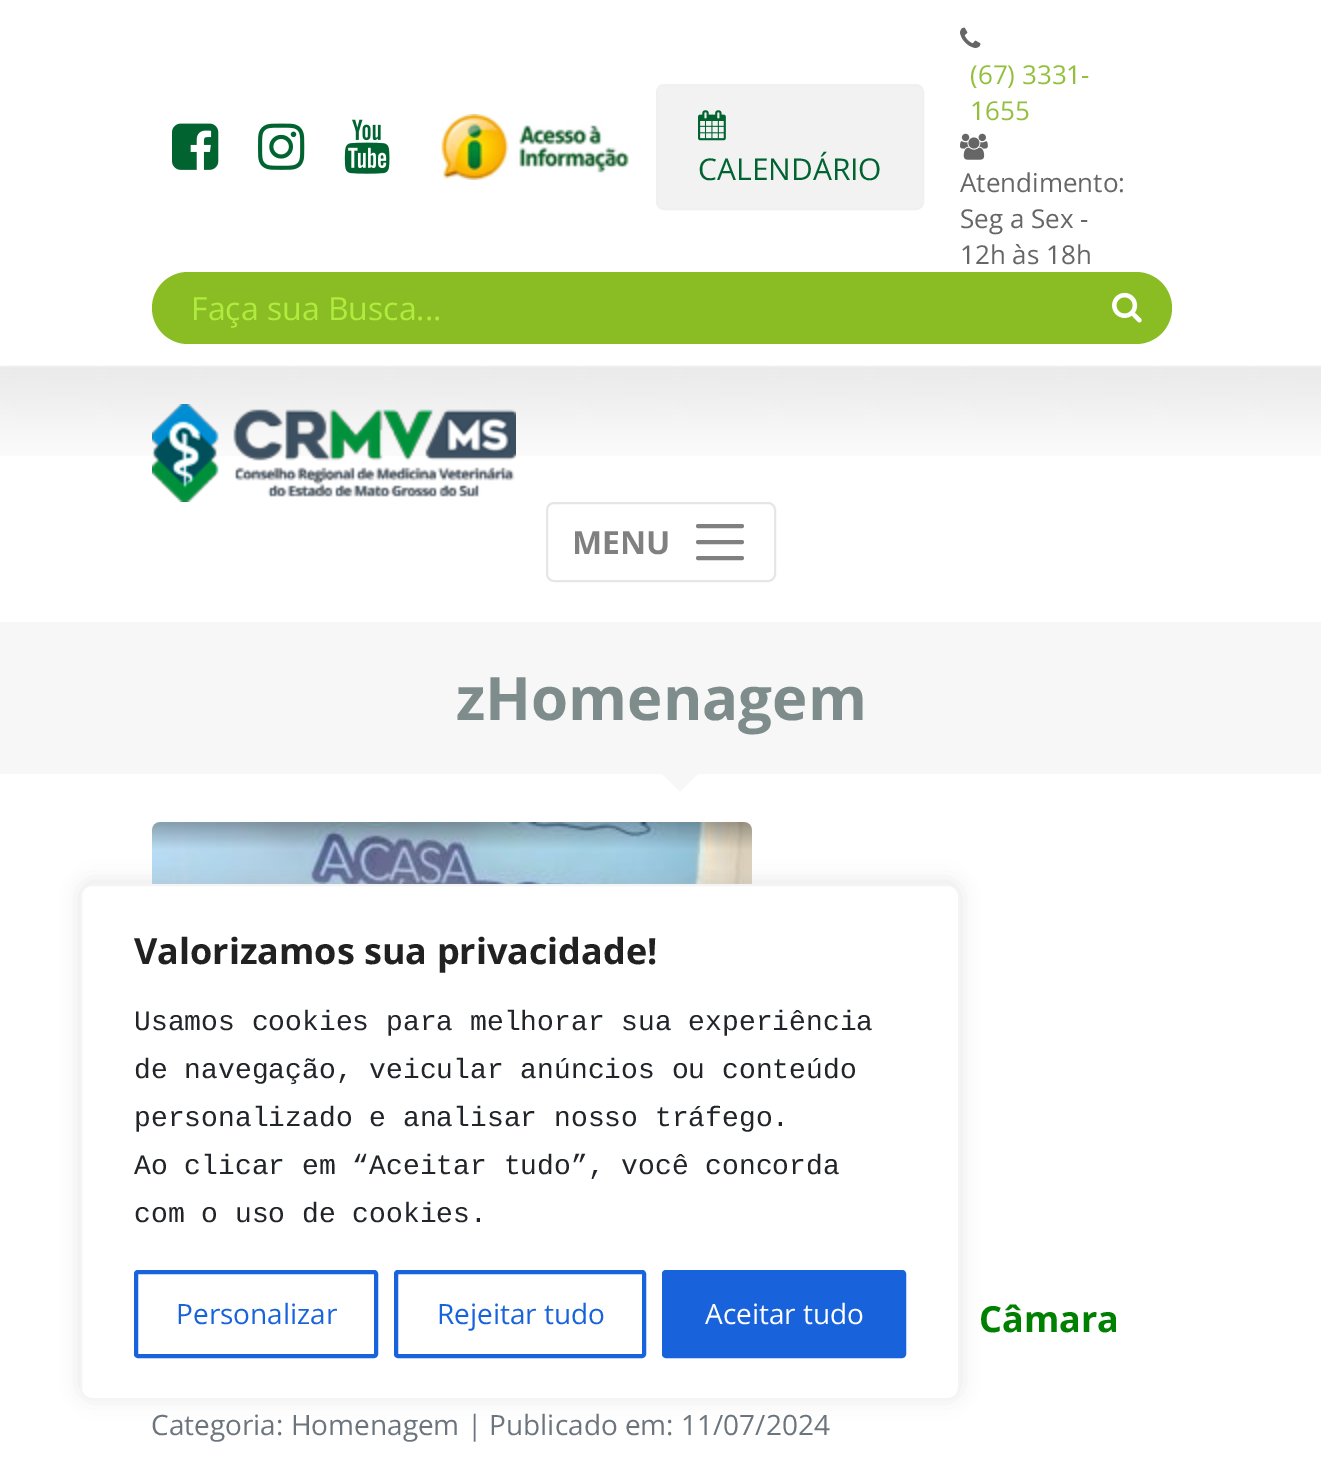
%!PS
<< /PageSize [1321 1480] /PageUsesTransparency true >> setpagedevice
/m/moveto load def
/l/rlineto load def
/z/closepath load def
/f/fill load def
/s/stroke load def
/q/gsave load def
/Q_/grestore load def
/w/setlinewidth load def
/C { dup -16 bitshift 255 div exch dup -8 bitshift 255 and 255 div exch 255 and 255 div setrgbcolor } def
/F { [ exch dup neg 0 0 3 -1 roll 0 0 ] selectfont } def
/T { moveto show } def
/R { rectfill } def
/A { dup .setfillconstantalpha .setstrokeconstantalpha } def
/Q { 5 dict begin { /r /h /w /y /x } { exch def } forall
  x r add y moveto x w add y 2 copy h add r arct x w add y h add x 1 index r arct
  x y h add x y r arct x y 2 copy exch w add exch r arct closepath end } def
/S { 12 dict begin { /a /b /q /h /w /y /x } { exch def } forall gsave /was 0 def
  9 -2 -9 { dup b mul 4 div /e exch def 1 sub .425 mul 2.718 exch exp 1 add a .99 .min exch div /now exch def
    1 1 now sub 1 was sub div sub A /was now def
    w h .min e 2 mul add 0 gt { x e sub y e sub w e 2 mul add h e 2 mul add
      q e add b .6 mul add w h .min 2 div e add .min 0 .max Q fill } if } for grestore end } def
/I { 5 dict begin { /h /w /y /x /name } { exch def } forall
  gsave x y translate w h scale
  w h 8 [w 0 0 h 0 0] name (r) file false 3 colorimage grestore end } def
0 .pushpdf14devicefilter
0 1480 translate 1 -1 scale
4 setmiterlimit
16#FFFFFF C
0 0 1321 1480 R
(1.rgb) 172 123 47 47 I
(2.rgb) 258 123 47 47 I
(3.rgb) 344 119 46 55 I
(4.rgb) 441 114 188 66 I
16#F2F2F2 C
657 85 266 124 7 Q q f Q_
16#F0F0F0 C
2 w
s
(5.rgb) 698 110 28 31 I
/OpenSans-Regular 30 F
16#006330 C
(CALENDÁRIO) 698 180 T
(6.rgb) 960 27 21 21 I
/OpenSans-Regular 26 F
16#92BF3C C
(\(67\) 3331-) 970 84 T
(1655) 970 120 T
(7.rgb) 960 133 28 27 I
16#666666 C
(Atendimento:) 960 192 T
(Seg a Sex -) 960 228 T
(12h às 18h) 960 264 T
16#89BD23 C
152 272 1020 72 36 Q f
/OpenSans-Regular 32 F
16#B1EB3F C
(Faça sua Busca...) 191 320 T
(8.rgb) 1112 292 30 31 I
(9.rgb) 0 365 1321 91 I
(10.rgb) 152 404 364 98 I
16#E6E6E6 C
547 503 228 78 7 Q s
/OpenSans-Bold 32 F
16#808080 C
(MENU) 572 554 T
4 w
1 setlinecap
698 526 m 44 0 l 698 542 m 44 0 l 698 558 m 44 0 l s
16#F7F7F7 C
0 622 1321 152 R
/OpenSans-Bold 60 F
16#7F8C8C C
(zHomenagem) 456 720 T
16#F7F7F7 C
662 774 m 36 0 l -18 18 l z f
(11.rgb) 152 822 600 62 I
16#ACABAB C
80 882 880 516 12 10 .3 S
16#FFFFFF C
81 885 878 514 11 Q q f Q_
16#F4F4F4 C
2 w
0 setlinecap
s
/OpenSans-Bold 36 F
16#212121 C
(Valorizamos sua privacidade!) 134 964 T
/LiberationMono-Regular 28 F
16#212529 C
(Usamos cookies para melhorar sua experiência) 134 1030 T
(de navegação, veicular anúncios ou conteúdo) 134 1078 T
(personalizado e analisar nosso tráfego.) 134 1126 T
(Ao clicar em “Aceitar tudo”, você concorda) 134 1174 T
(com o uso de cookies.) 134 1222 T
16#1863DC C
4 w
136 1272 240 84 2 Q s
/OpenSans-Regular 28 F
(Personalizar) 176 1324 T
396 1272 248 84 2 Q s
(Rejeitar tudo) 437 1324 T
664 1272 240 84 2 Q q f Q_
s
16#FFFFFF C
(Aceitar tudo) 705 1324 T
/OpenSans-Bold 36 F
16#008000 C
(Câmara) 979 1332 T
/OpenSans-Regular 28 F
16#6C757D C
(Categoria: Homenagem | Publicado em: 11/07/2024) 151 1435 T
.poppdf14devicefilter showpage
